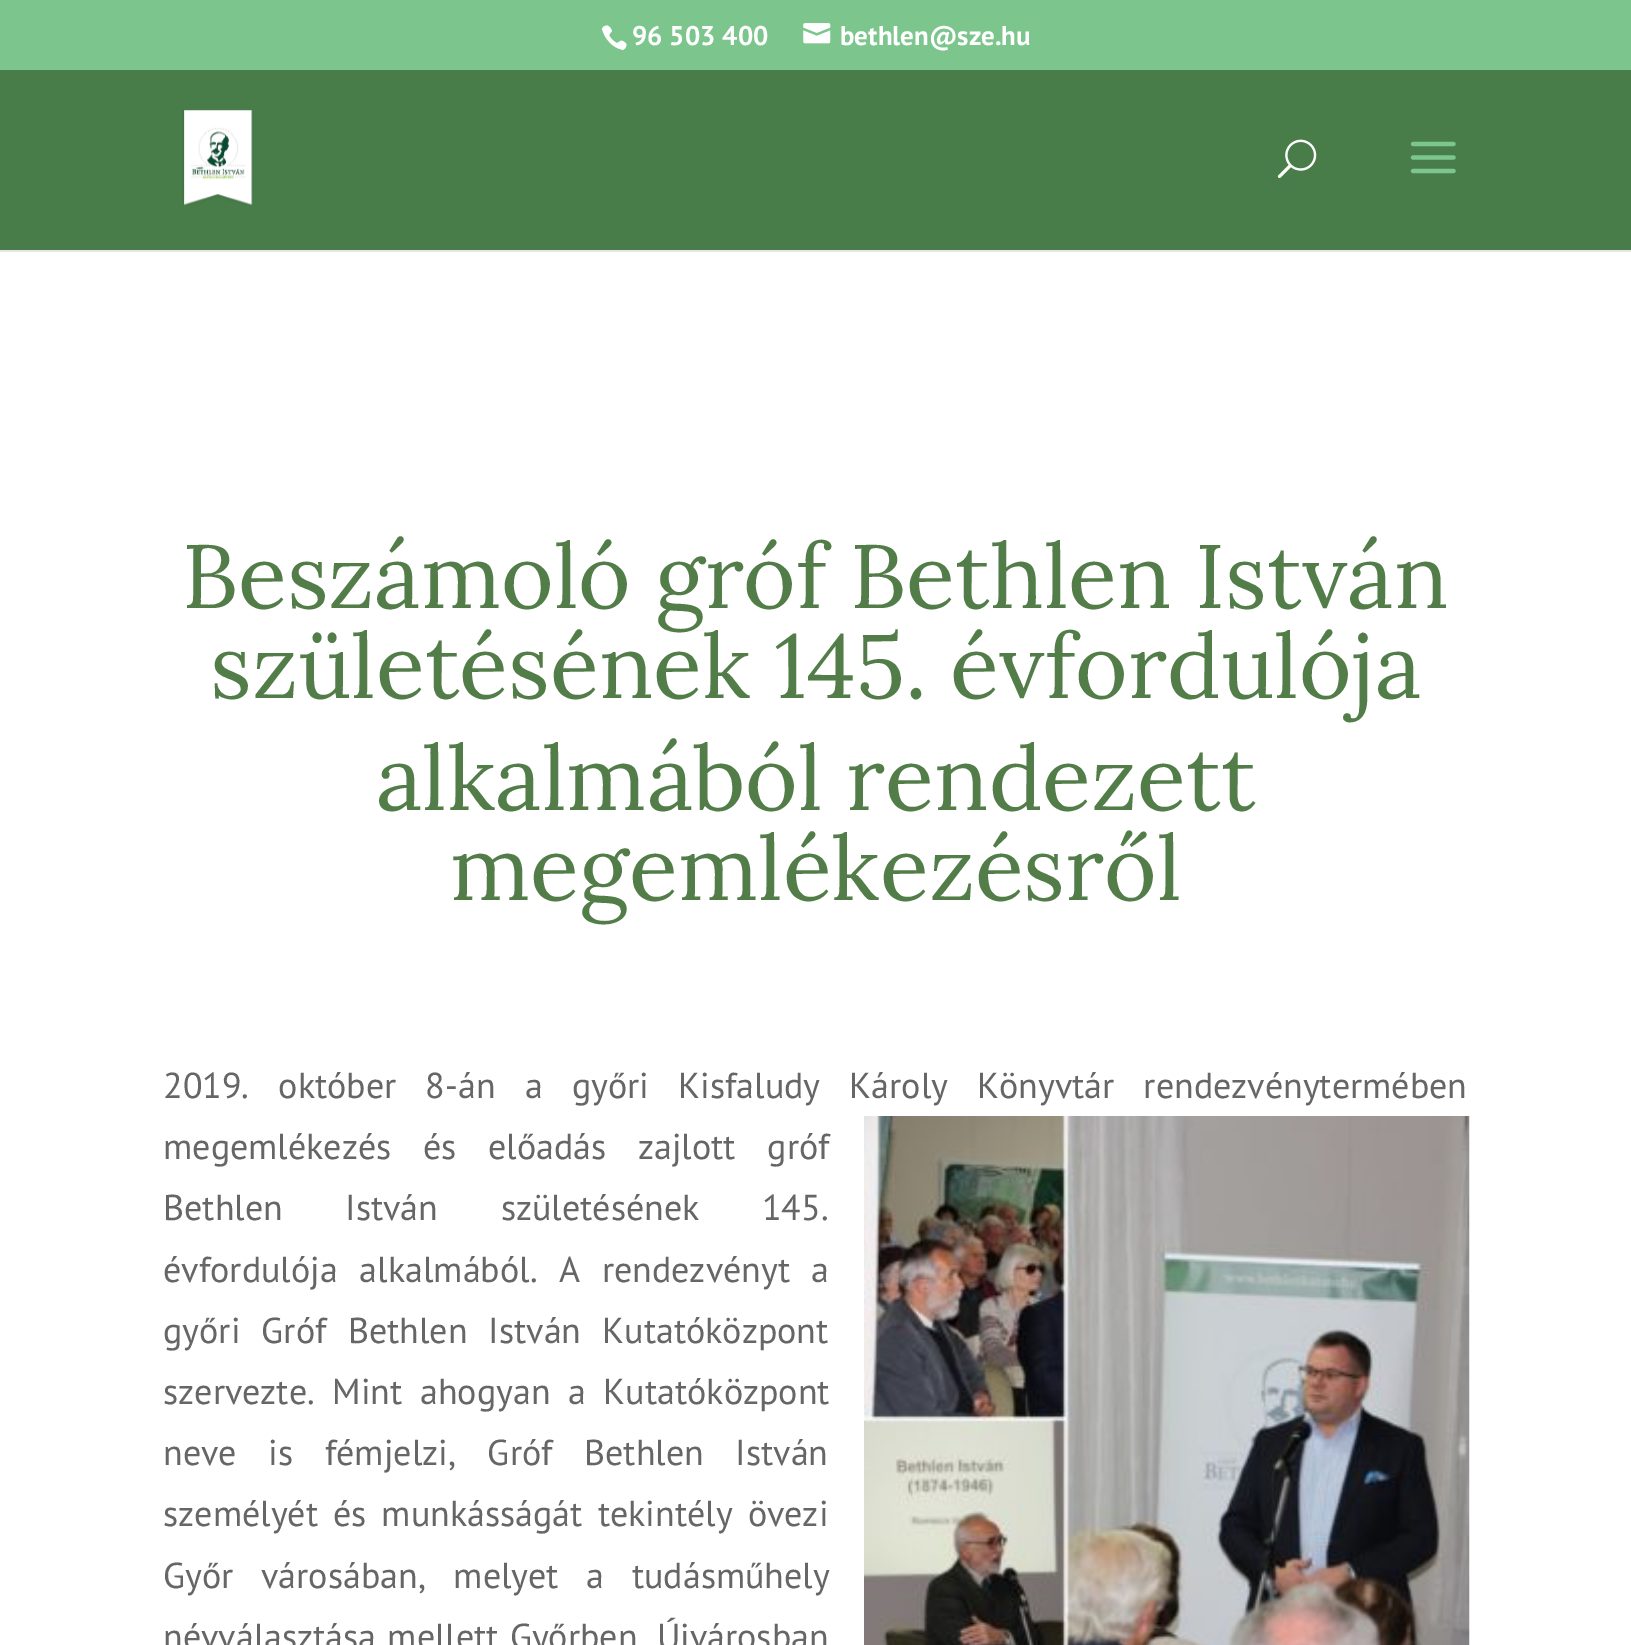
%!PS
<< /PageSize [1631 1645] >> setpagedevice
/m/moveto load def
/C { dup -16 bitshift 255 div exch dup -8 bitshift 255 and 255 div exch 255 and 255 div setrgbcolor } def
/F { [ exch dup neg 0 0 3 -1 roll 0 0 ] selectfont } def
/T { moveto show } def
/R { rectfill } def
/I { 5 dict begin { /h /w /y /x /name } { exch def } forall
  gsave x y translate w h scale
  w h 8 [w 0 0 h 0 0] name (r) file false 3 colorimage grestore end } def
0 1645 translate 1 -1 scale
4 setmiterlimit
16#FFFFFF C
0 0 1631 1645 R
16#7CC68D C
0 0 1631 70 R
(1.rgb) 601 25 26 25 I
/PTSans-Bold 27 F
16#FFFFFF C
(96 503 400) 632 45 T
(2.rgb) 803 23 28 21 I
(bethlen@sze.hu) 840 45 T
16#E6E6E6 C
0 250 1631 2 R
16#487D49 C
0 70 1631 180 R
(3.rgb) 182 110 72 96 I
(4.rgb) 1277 139 40 39 I
(5.rgb) 1410 141 46 33 I
/Lora-Regular 90 F
16#527D49 C
(Beszámoló gróf Bethlen István) 182 608 T
(születésének 145. évfordulója) 210 698 T
(alkalmából rendezett) 376 810 T
(megemlékezésről) 450 900 T
/PTSans-Regular 36 F
16#666666 C
163 1098 m 19.5 0 32 (2019. október 8-án a győri Kisfaludy Károly Könyvtár rendezvénytermében) widthshow
163 1159 m 22 0 32 (megemlékezés és előadás zajlott gróf) widthshow
(6.rgb) 864 1116 606 529 I
163 1220 m 53 0 32 (Bethlen István születésének 145.) widthshow
163 1282 m 12 0 32 (évfordulója alkalmából. A rendezvényt a) widthshow
163 1343 m 11.5 0 32 (győri Gróf Bethlen István Kutatóközpont) widthshow
163 1404 m 8 0 32 (szervezte. Mint ahogyan a Kutatóközpont) widthshow
163 1465 m 22 0 32 (neve is fémjelzi, Gróf Bethlen István) widthshow
163 1526 m 5.5 0 32 (személyét és munkásságát tekintély övezi) widthshow
163 1588 m 18 0 32 (Győr városában, melyet a tudásműhely) widthshow
163 1649 m 1.5 0 32 (névválasztása mellett Győrben, Újvárosban) widthshow
showpage
